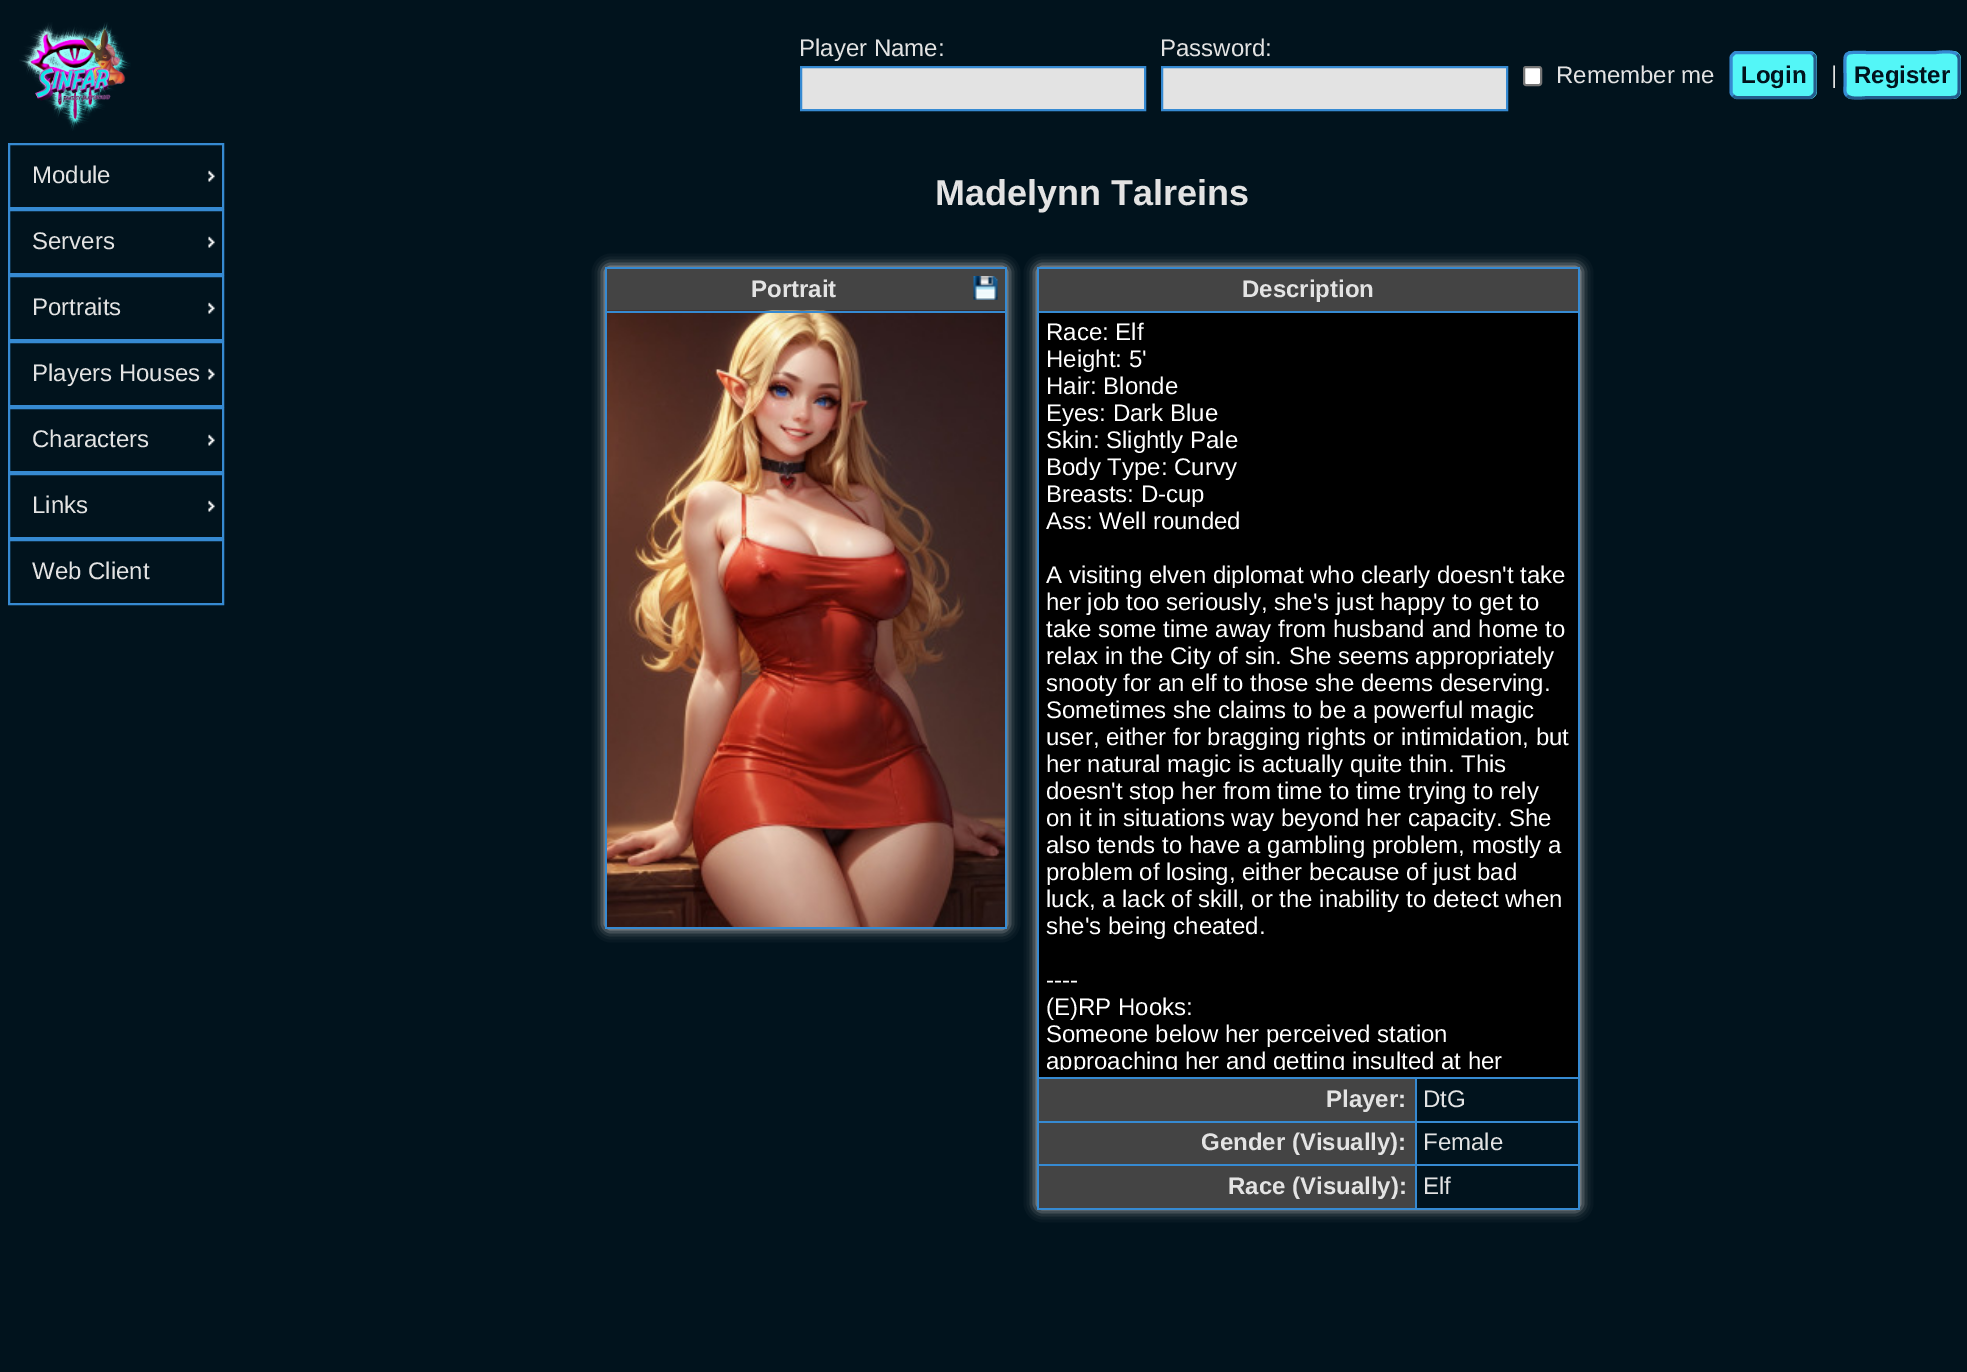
%!PS
<< /PageSize [1967 1372] /PageUsesTransparency true >> setpagedevice
/m/moveto load def
/l/rlineto load def
/c/rcurveto load def
/z/closepath load def
/f/fill load def
/s/stroke load def
/q/gsave load def
/Q_/grestore load def
/w/setlinewidth load def
/C { dup -16 bitshift 255 div exch dup -8 bitshift 255 and 255 div exch 255 and 255 div setrgbcolor } def
/F { [ exch dup neg 0 0 3 -1 roll 0 0 ] selectfont } def
/T { moveto show } def
/R { rectfill } def
/A { dup .setfillconstantalpha .setstrokeconstantalpha } def
/Q { 5 dict begin { /r /h /w /y /x } { exch def } forall
  x r add y moveto x w add y 2 copy h add r arct x w add y h add x 1 index r arct
  x y h add x y r arct x y 2 copy exch w add exch r arct closepath end } def
/S { 12 dict begin { /a /b /q /h /w /y /x } { exch def } forall gsave /was 0 def
  9 -2 -9 { dup b mul 4 div /e exch def 1 sub .425 mul 2.718 exch exp 1 add a .99 .min exch div /now exch def
    1 1 now sub 1 was sub div sub A /was now def
    w h .min e 2 mul add 0 gt { x e sub y e sub w e 2 mul add h e 2 mul add
      q e add b .6 mul add w h .min 2 div e add .min 0 .max Q fill } if } for grestore end } def
/I { 5 dict begin { /h /w /y /x /name } { exch def } forall
  gsave x y translate w h scale
  w h 8 [w 0 0 h 0 0] name (r) file false 3 colorimage grestore end } def
0 .pushpdf14devicefilter
0 1372 translate 1 -1 scale
4 setmiterlimit
16#01131D C
0 0 1967 1372 R
(1.rgb) 19 22 112 109 I
/LiberationSans-Regular 24 F
16#E3E3E3 C
(Player Name:) 799 56 T
801 67 m 344 0 l 0 43 l -344 0 l z q f Q_
16#368AD2 C
2 w
s
16#E3E3E3 C
(Password:) 1160 56 T
1162 67 m 345 0 l 0 43 l -345 0 l z q f Q_
16#368AD2 C
s
16#FFFFFF C
1524 67 17 18 2 Q q f Q_
16#767676 C
s
16#E3E3E3 C
(Remember me) 1556 83 T
16#53F6F7 C
1730 51 87 48 8 Q f
16#245C8C C
3 w
1813 54.5 m 1.5 1 2 2.5 2 4 c 0 33 l 0 1.5 -.5 3 -2 4 c -1 1.5 -2.5 2 -4 2 c -72 0 l -1.5 0 -3 -.5 -4 -2 c s
16#368AD2 C
1733 95.5 m -1.5 -1 -2 -2.5 -2 -4 c 0 -33 l 0 -1.5 .5 -3 2 -4 c 1 -1.5 2.5 -2 4 -2 c 72 0 l 1.5 0 3 .5 4 2 c s
/LiberationSans-Bold 24 F
16#01131D C
(Login) 1741 83 T
/LiberationSans-Regular 24 F
16#E3E3E3 C
(|) 1831 83 T
16#53F6F7 C
1844 51 117 48 8 Q f
16#245C8C C
1957 54.5 m 3 2.5 2 6.5 2 9.5 c 0 11 l 0 25.5 3.5 22.5 -23 22.5 c -68 0 l -2.5 0 -17 2.5 -21 -2 c s
16#368AD2 C
1847 95.5 m -3 -2.5 -2 -6.5 -2 -9.5 c 0 -11 l 0 -25.5 -3.5 -22.5 23 -22.5 c 68 0 l 2.5 0 17 -2.5 21 2 c s
/LiberationSans-Bold 24 F
16#01131D C
(Register) 1854 83 T
16#368AD2 C
2 w
9 144 214 64 rectstroke
/LiberationSans-Regular 24 F
16#E3E3E3 C
(Module) 32 183 T
(2.rgb) 208 170 7 12 I
16#368AD2 C
9 210 214 64 rectstroke
16#E3E3E3 C
(Servers) 32 249 T
(2.rgb) 208 236 7 12 I
16#368AD2 C
9 276 214 64 rectstroke
16#E3E3E3 C
(Portraits) 32 315 T
(2.rgb) 208 302 7 12 I
16#368AD2 C
9 342 214 64 rectstroke
16#E3E3E3 C
(Players Houses) 32 381 T
(2.rgb) 208 368 7 12 I
16#368AD2 C
9 408 214 64 rectstroke
16#E3E3E3 C
(Characters) 32 447 T
(2.rgb) 208 434 7 12 I
16#368AD2 C
9 474 214 64 rectstroke
16#E3E3E3 C
(Links) 32 513 T
(2.rgb) 208 500 7 12 I
16#368AD2 C
9 540 214 64 rectstroke
16#E3E3E3 C
(Web Client) 32 579 T
/LiberationSans-Bold 36 F
(Madelynn Talreins) 935 205 T
16#DDDDDD C
605 267 402 662 3 6 1 S
16#444444 C
607 269 398 42 R
16#368AD2 C
605 267 402 2 R
(4.rgb) 607 310 398 617 I
605 311 402 2 R
1005 311 2 618 R
1005 267 2 45 R
605 927 402 2 R
605 311 2 618 R
605 267 2 45 R
/LiberationSans-Bold 24 F
16#E3E3E3 C
(Portrait) 751 297 T
(3.rgb) 973 276 25 24 I
16#DDDDDD C
1037 267 543 942 3 6 1 S
16#01131D C
1417 1079 161 129 R
16#444444 C
1039 269 539 42 R
16#368AD2 C
1037 267 543 2 R
1037 311 543 2 R
1415 1077 165 2 R
1415 1121 165 2 R
1415 1164 165 2 R
1578 1164 2 45 R
1578 1121 2 45 R
1578 1077 2 45 R
1578 311 2 768 R
1578 267 2 45 R
1415 1208 165 2 R
1415 1164 2 45 R
1037 1164 379 2 R
1415 1121 2 45 R
1037 1121 379 2 R
1415 1077 2 45 R
1037 1077 379 2 R
1037 1208 379 2 R
1037 1164 2 45 R
1037 1121 2 45 R
1037 1077 2 45 R
1037 311 2 768 R
1037 267 2 45 R
16#E3E3E3 C
(Description) 1242 297 T
16#000000 C
1039 313 539 764 R
/LiberationSans-Regular 24 F
16#FFFFFF C
(Race: Elf) 1046 340 T
(Height: 5') 1046 367 T
(Hair: Blonde) 1046 394 T
(Eyes: Dark Blue) 1046 421 T
(Skin: Slightly Pale) 1046 448 T
(Body Type: Curvy) 1046 475 T
(Breasts: D-cup) 1046 502 T
(Ass: Well rounded) 1046 529 T
(A visiting elven diplomat who clearly doesn't take) 1046 583 T
(her job too seriously, she's just happy to get to) 1046 610 T
(take some time away from husband and home to) 1046 637 T
(relax in the City of sin. She seems appropriately) 1046 664 T
(snooty for an elf to those she deems deserving.) 1046 691 T
(Sometimes she claims to be a powerful magic) 1046 718 T
(user, either for bragging rights or intimidation, but) 1046 745 T
(her natural magic is actually quite thin. This) 1046 772 T
(doesn't stop her from time to time trying to rely) 1046 799 T
(on it in situations way beyond her capacity. She) 1046 826 T
(also tends to have a gambling problem, mostly a) 1046 853 T
(problem of losing, either because of just bad) 1046 880 T
(luck, a lack of skill, or the inability to detect when) 1046 907 T
(she's being cheated.) 1046 934 T
(----) 1046 988 T
(\(E\)RP Hooks:) 1046 1015 T
(Someone below her perceived station) 1046 1042 T
q
1046 320 525 750 rectclip
(approaching her and getting insulted at her) 1046 1069 T
Q_
16#444444 C
1039 1079 376 42 R
/LiberationSans-Bold 24 F
16#E3E3E3 C
(Player:) 1326 1107 T
/LiberationSans-Regular 24 F
(DtG) 1423 1107 T
16#444444 C
1039 1123 376 41 R
/LiberationSans-Bold 24 F
16#E3E3E3 C
(Gender \(Visually\):) 1201 1150 T
/LiberationSans-Regular 24 F
(Female) 1423 1150 T
16#444444 C
1039 1166 376 42 R
/LiberationSans-Bold 24 F
16#E3E3E3 C
(Race \(Visually\):) 1228 1194 T
/LiberationSans-Regular 24 F
(Elf) 1423 1194 T
.poppdf14devicefilter showpage
